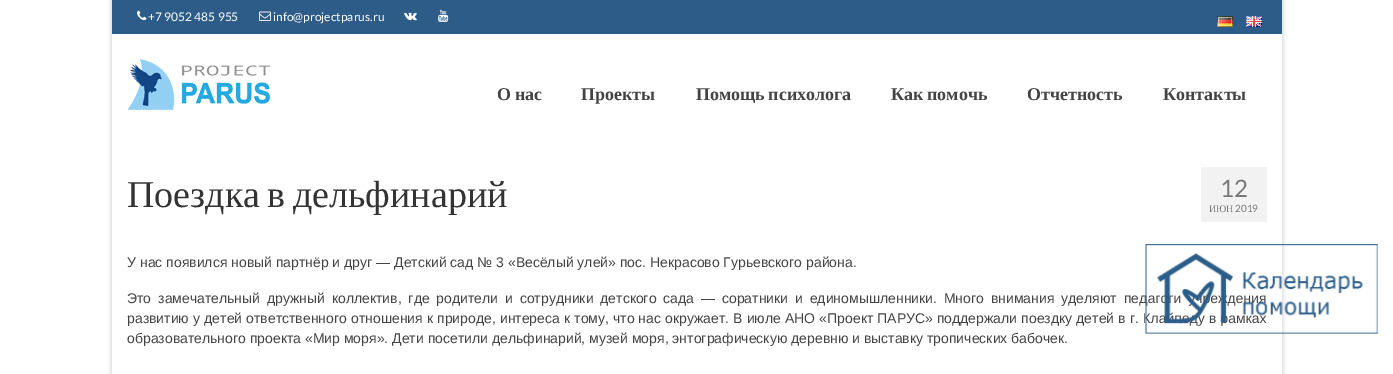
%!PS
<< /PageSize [1393 374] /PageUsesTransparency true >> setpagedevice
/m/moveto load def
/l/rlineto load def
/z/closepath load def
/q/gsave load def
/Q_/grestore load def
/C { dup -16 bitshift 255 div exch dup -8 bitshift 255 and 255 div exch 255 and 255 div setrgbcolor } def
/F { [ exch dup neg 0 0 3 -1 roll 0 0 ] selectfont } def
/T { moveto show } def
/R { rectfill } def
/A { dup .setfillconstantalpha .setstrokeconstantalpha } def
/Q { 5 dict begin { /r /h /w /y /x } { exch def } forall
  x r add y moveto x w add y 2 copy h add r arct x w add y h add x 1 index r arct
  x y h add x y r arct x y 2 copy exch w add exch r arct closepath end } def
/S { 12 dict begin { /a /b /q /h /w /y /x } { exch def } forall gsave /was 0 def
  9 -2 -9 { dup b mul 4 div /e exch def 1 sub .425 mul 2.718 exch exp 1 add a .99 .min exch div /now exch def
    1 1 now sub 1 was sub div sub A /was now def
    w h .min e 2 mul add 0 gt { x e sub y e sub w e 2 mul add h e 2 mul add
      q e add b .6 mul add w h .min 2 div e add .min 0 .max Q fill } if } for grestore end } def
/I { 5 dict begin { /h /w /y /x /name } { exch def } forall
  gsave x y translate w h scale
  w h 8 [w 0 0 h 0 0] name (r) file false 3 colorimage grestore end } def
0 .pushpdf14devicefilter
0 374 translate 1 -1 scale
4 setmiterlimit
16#FFFFFF C
0 0 1393 374 R
q
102 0 m 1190 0 l 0 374 l -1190 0 l z 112 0 m 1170 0 l 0 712 l -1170 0 l z eoclip newpath
16#000000 C
111 -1 1172 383 0 2.5 .16 S
Q_
16#2D5C88 C
112 0 1170 34 R
(1.rgb) 137 10 10 11 I
/Lato-Regular 12 F
16#FFFFFF C
(+7 9052 485 955) 148 21 T
(2.rgb) 259 11 12 10 I
(info@projectparus.ru) 273 21 T
(3.rgb) 404 12 13 9 I
(4.rgb) 438 9 11 13 I
(5.rgb) 1217 16 16 11 I
(6.rgb) 1246 16 16 11 I
(7.rgb) 127 59 143 51 I
/LiberationSerif-Bold 18 F
16#444444 C
497 100 m -1 0 32 (О нас) widthshow
(Проекты) 581 100 T
696 100 m -1 0 32 (Помощь психолога) widthshow
891 100 m -1 0 32 (Как помочь) widthshow
(Отчетность) 1027 100 T
(Контакты) 1163 100 T
/LiberationSerif-Regular 38 F
16#333333 C
127 207 m -2 0 32 (Поездка в дельфинарий) widthshow
16#F2F2F2 C
1201 167 66 55 R
/Lato-Regular 24 F
16#777777 C
(12) 1220 197 T
/LiberationSerif-Regular 10 F
(ИЮН) 1209 212 T
/Lato-Regular 10 F
(2019) 1235 212 T
/LiberationSans-Regular 14 F
16#444444 C
(У нас появился новый партнёр и друг — Детский сад № 3 «Весёлый улей» пос. Некрасово Гурьевского района.) 127 267 T
127 303 m 3 0 32 (Это замечательный дружный коллектив, где родители и сотрудники детского сада — соратники и единомышленники. Много внимания уделяют педагоги) widthshow
1210 303 m 3 0 32 (еждения) widthshow
127 323 m .2 0 32 (развитию у детей ответственного отношения к природе, интереса к тому, что нас окружает. В июле АНО «Проект ПАРУС» поддержали поездку детей в г. Кл) widthshow
1209 323 m .2 0 32 (в рамках) widthshow
(образовательного проекта «Мир моря». Дети посетили дельфинарий, музей моря, энтографическую деревню и выставку тропических бабочек.) 127 343 T
(8.rgb) 1145 244 233 90 I
.poppdf14devicefilter showpage
